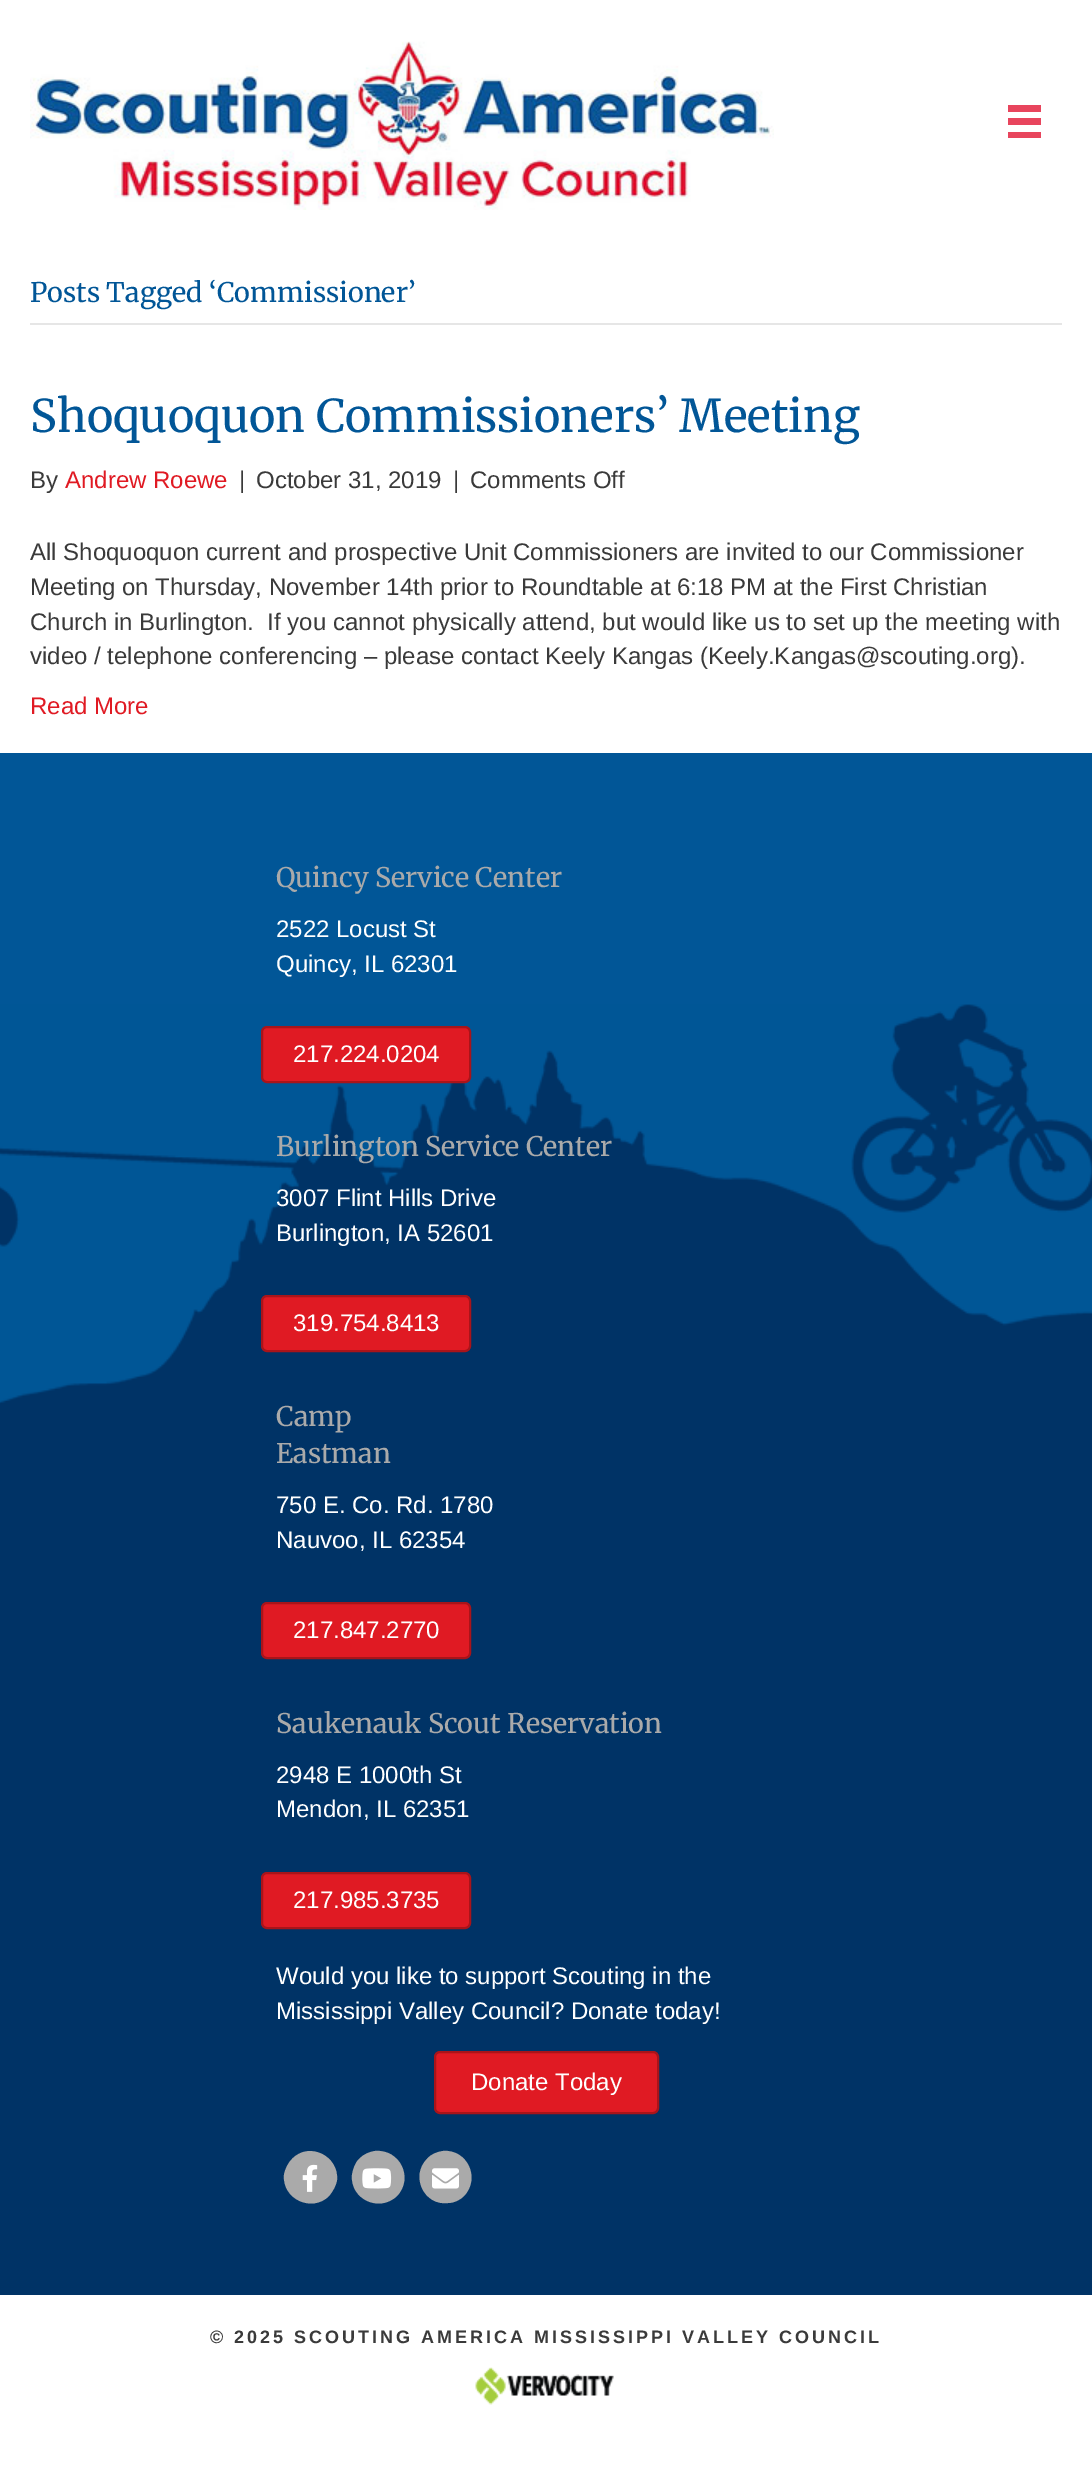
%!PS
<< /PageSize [1092 2488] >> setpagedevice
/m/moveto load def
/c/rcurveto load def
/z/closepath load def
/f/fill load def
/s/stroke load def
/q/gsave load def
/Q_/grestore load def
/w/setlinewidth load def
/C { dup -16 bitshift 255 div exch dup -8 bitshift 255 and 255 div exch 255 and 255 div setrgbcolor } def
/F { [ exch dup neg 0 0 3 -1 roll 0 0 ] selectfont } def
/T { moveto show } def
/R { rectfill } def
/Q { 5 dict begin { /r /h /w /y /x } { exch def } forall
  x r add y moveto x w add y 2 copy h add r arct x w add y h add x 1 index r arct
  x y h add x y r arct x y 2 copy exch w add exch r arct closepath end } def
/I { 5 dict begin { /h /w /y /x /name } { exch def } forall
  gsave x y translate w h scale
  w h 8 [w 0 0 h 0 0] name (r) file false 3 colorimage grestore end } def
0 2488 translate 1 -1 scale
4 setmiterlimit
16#FFFFFF C
0 0 1092 2488 R
(1.rgb) 30 41 744 169 I
16#E8455D C
1008 105 33 7 R
1008 118 33 7 R
1008 132 33 6 R
16#E6E6E6 C
30 323 1032 2 R
/Merriweather-Light 27 F
16#015697 C
(Posts Tagged ‘Commissioner’) 30 302 T
/Merriweather-Light 45 F
(Shoquoquon Commissioners’ Meeting) 30 432 T
/LiberationSans-Regular 24 F
16#3A3A3A C
(By) 30 488 T
16#E01A23 C
(Andrew Roewe) 65 488 T
16#3A3A3A C
(|) 239 488 T
(October 31, 2019) 256 488 T
(|) 453 488 T
(Comments Off) 470 488 T
(All Shoquoquon current and prospective Unit Commissioners are invited to our Commissioner) 30 560 T
(Meeting on Thursday, November 14th prior to Roundtable at 6:18 PM at the First Christian) 30 595 T
(Church in Burlington.  If you cannot physically attend, but would like us to set up the meeting with) 30 630 T
(video / telephone conferencing – please contact Keely Kangas \(Keely.Kangas@scouting.org\).) 30 664 T
16#E01A23 C
(Read More) 30 714 T
16#015697 C
0 753 1092 251 R
(2.rgb) 0 1004 1092 1291 I
/Merriweather-Light 27 F
16#AAAAAA C
(Quincy Service Center) 276 887 T
/LiberationSans-Regular 24 F
16#FFFFFF C
(2522 Locust St) 276 937 T
(Quincy, IL 62301) 276 972 T
16#E01A23 C
262 1027 208 55 5 Q q f Q_
16#A9141A C
2 w
s
16#FFFFFF C
(217.224.0204) 293 1062 T
/Merriweather-Light 27 F
16#AAAAAA C
(Burlington Service Center) 276 1156 T
/LiberationSans-Regular 24 F
16#FFFFFF C
(3007 Flint Hills Drive) 276 1206 T
(Burlington, IA 52601) 276 1241 T
16#E01A23 C
262 1296 208 55 5 Q q f Q_
16#A9141A C
s
16#FFFFFF C
(319.754.8413) 293 1331 T
/Merriweather-Light 27 F
16#AAAAAA C
(Camp) 276 1426 T
(Eastman) 276 1463 T
/LiberationSans-Regular 24 F
16#FFFFFF C
(750 E. Co. Rd. 1780) 276 1513 T
(Nauvoo, IL 62354) 276 1548 T
16#E01A23 C
262 1603 208 55 5 Q q f Q_
16#A9141A C
s
16#FFFFFF C
(217.847.2770) 293 1638 T
/Merriweather-Light 27 F
16#AAAAAA C
(Saukenauk Scout Reservation) 276 1733 T
/LiberationSans-Regular 24 F
16#FFFFFF C
(2948 E 1000th St) 276 1783 T
(Mendon, IL 62351) 276 1817 T
16#E01A23 C
262 1873 208 55 5 Q q f Q_
16#A9141A C
s
16#FFFFFF C
(217.985.3735) 293 1908 T
(Would you like to support Scouting in the) 276 1984 T
(Mississippi Valley Council? Donate today!) 276 2019 T
16#E01A23 C
435 2052 223 61 5 Q q f Q_
16#A9141A C
s
16#FFFFFF C
(Donate Today) 471 2090 T
16#AAAAAA C
292 2159 m 17 -18 47 -3 45 21 c -1 6 -4 11 -8 16 c -17 17 -47 3 -45 -21 c 1 -6 4 -12 8 -16 c z f
(3.rgb) 302 2164 16 28 I
359 2159 m 5 -5 10 -7 16 -8 c 25 -2 39 27 22 45 c -18 17 -47 3 -45 -21 c 1 -6 3 -12 7 -16 c z f
(4.rgb) 362 2168 30 21 I
427 2159 m 4 -5 10 -7 16 -8 c 24 -2 38 27 21 45 c -4 4 -10 7 -16 7 c -24 3 -38 -27 -21 -44 c z f
(5.rgb) 432 2168 27 21 I
/LiberationSans-Bold 18 F
16#3A3A3A C
210 2343 m 3 0 (© 2025 SCOUTING AMERICA MISSISSIPPI VALLEY COUNCIL) ashow
(6.rgb) 475 2367 139 38 I
showpage
